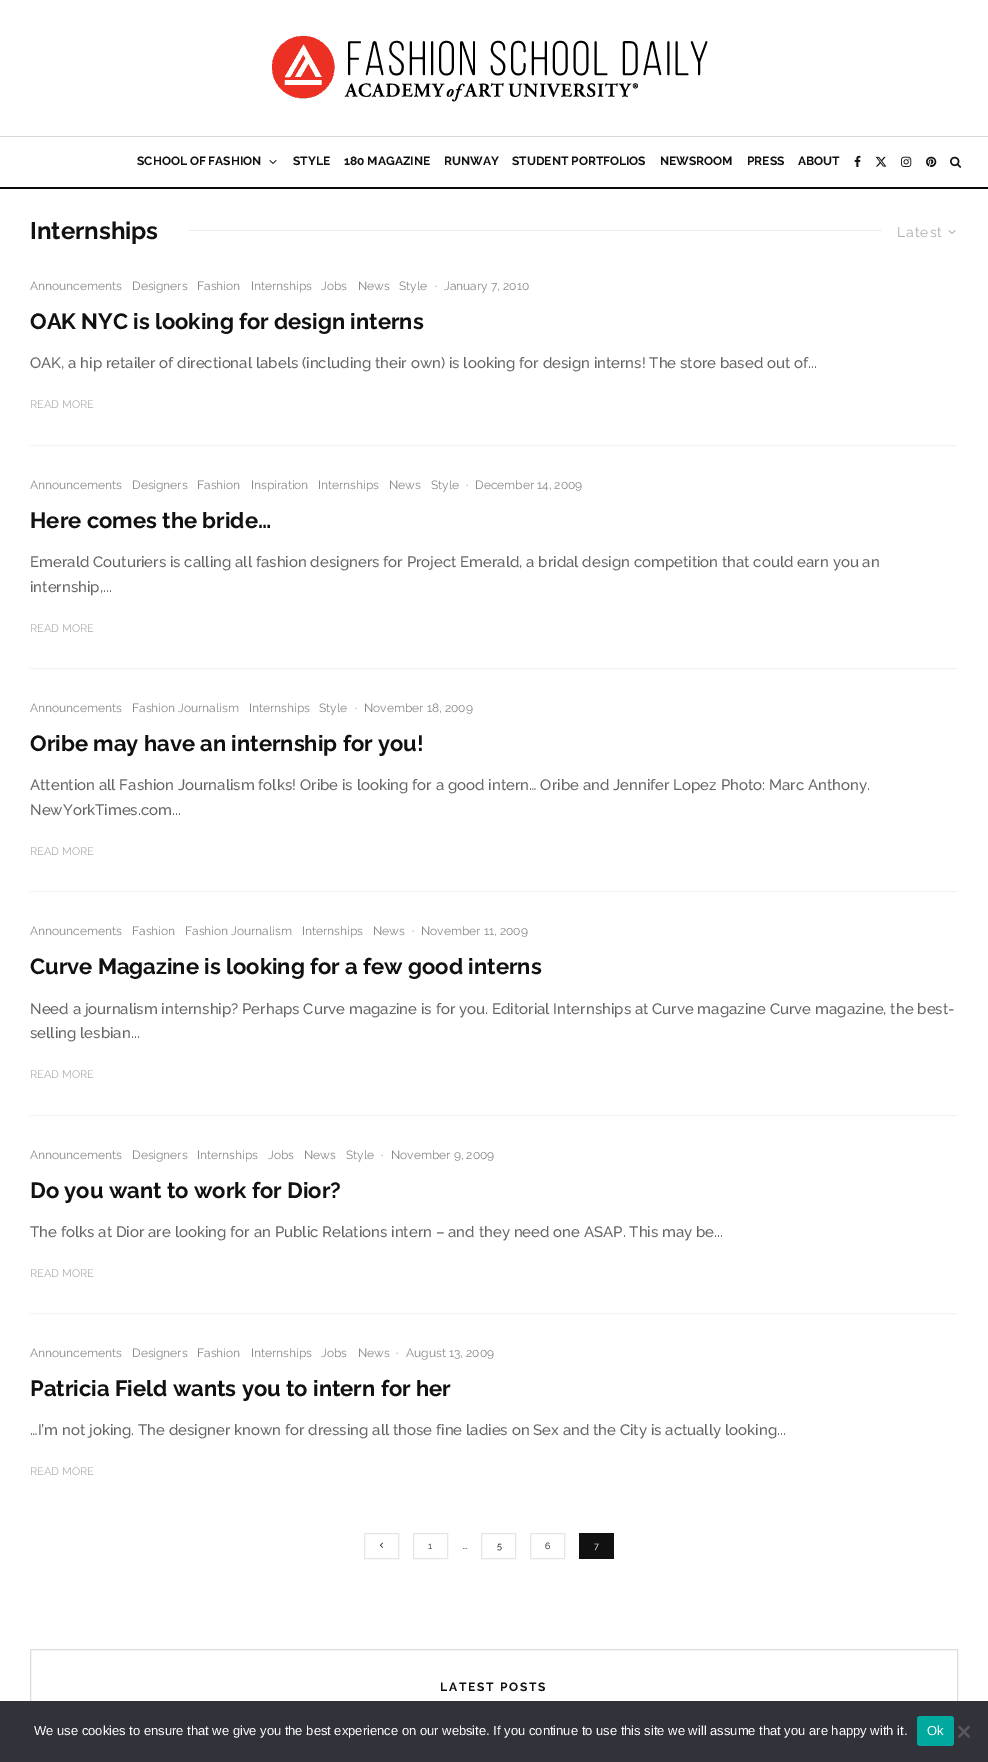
%!PS
<< /PageSize [988 1762] >> setpagedevice
/m/moveto load def
/l/rlineto load def
/z/closepath load def
/f/fill load def
/s/stroke load def
/C { dup -16 bitshift 255 div exch dup -8 bitshift 255 and 255 div exch 255 and 255 div setrgbcolor } def
/F { [ exch dup neg 0 0 3 -1 roll 0 0 ] selectfont } def
/T { moveto show } def
/R { rectfill } def
/Q { 5 dict begin { /r /h /w /y /x } { exch def } forall
  x r add y moveto x w add y 2 copy h add r arct x w add y h add x 1 index r arct
  x y h add x y r arct x y 2 copy exch w add exch r arct closepath end } def
/I { 5 dict begin { /h /w /y /x /name } { exch def } forall
  gsave x y translate w h scale
  w h 8 [w 0 0 h 0 0] name (r) file false 3 colorimage grestore end } def
0 1762 translate 1 -1 scale
4 setmiterlimit
16#FFFFFF C
0 0 988 1762 R
(1.rgb) 272 36 436 66 I
16#D8D8D8 C
0 136 988 1 R
16#0A0A0A C
0 187 988 2 R
/Raleway-Bold 12 F
16#111111 C
(SCHOOL OF FASHION) 137 165 T
(2.rgb) 269 160 8 4 I
(STYLE) 293 165 T
(180 MAGAZINE) 344 165 T
(RUNWAY) 444 165 T
(STUDENT PORTFOLIOS) 512 165 T
(NEWSROOM) 660 165 T
(PRESS) 747 165 T
(ABOUT) 798 165 T
(3.rgb) 854 155 7 12 I
(4.rgb) 875 156 12 11 I
(5.rgb) 901 156 11 11 I
(6.rgb) 926 156 11 11 I
(7.rgb) 950 156 12 12 I
/Raleway-Bold 24 F
(Internships) 30 239 T
16#EEEEEE C
188 230 694 1 R
/Raleway-Regular 14 F
16#ADADAD C
897 237 m 1 0 (Latest) ashow
(8.rgb) 948 230 8 4 I
16#E9E9E9 C
[1 1] 0 setdash
30 445.5 m 928 0 l s
/Raleway-Regular 12 F
16#888888 C
(Announcements) 30 290 T
(Designers) 132 290 T
(Fashion) 197 290 T
(Internships) 251 290 T
(Jobs) 321 290 T
(News) 358 290 T
(Style) 399 290 T
(·) 435 290 T
(January 7, 2010) 444 290 T
/Raleway-Bold 22 F
16#111111 C
(OAK NYC is looking for design interns) 30 329 T
/Raleway-Medium 15 F
16#666666 C
(OAK, a hip retailer of directional labels \(including their own\) is looking for design interns! The store based out of...) 30 368 T
/Raleway-Regular 11 F
16#ADADAD C
(READ MORE) 30 408 T
16#E9E9E9 C
30 668.5 m 928 0 l s
/Raleway-Regular 12 F
16#888888 C
(Announcements) 30 489 T
(Designers) 132 489 T
(Fashion) 197 489 T
(Inspiration) 251 489 T
(Internships) 318 489 T
(News) 389 489 T
(Style) 431 489 T
(·) 466 489 T
(December 14, 2009) 475 489 T
/Raleway-Bold 22 F
16#111111 C
(Here comes the bride…) 30 528 T
/Raleway-Medium 15 F
16#666666 C
(Emerald Couturiers is calling all fashion designers for Project Emerald, a bridal design competition that could earn you an) 30 567 T
(internship,...) 30 592 T
/Raleway-Regular 11 F
16#ADADAD C
(READ MORE) 30 632 T
16#E9E9E9 C
30 891.5 m 928 0 l s
/Raleway-Regular 12 F
16#888888 C
(Announcements) 30 712 T
(Fashion Journalism) 132 712 T
(Internships) 249 712 T
(Style) 319 712 T
(·) 355 712 T
(November 18, 2009) 364 712 T
/Raleway-Bold 22 F
16#111111 C
(Oribe may have an internship for you!) 30 751 T
/Raleway-Medium 15 F
16#666666 C
(Attention all Fashion Journalism folks! Oribe is looking for a good intern… Oribe and Jennifer Lopez Photo: Marc Anthony.) 30 790 T
(NewYorkTimes.com...) 30 815 T
/Raleway-Regular 11 F
16#ADADAD C
(READ MORE) 30 855 T
16#E9E9E9 C
30 1115.5 m 928 0 l s
/Raleway-Regular 12 F
16#888888 C
(Announcements) 30 935 T
(Fashion) 132 935 T
(Fashion Journalism) 185 935 T
(Internships) 302 935 T
(News) 373 935 T
(·) 412 935 T
(November 11, 2009) 421 935 T
/Raleway-Bold 22 F
16#111111 C
(Curve Magazine is looking for a few good interns) 30 974 T
/Raleway-Medium 15 F
16#666666 C
(Need a journalism internship? Perhaps Curve magazine is for you. Editorial Internships at Curve magazine Curve magazine, the best-) 30 1014 T
(selling lesbian...) 30 1038 T
/Raleway-Regular 11 F
16#ADADAD C
(READ MORE) 30 1078 T
16#E9E9E9 C
30 1313.5 m 928 0 l s
/Raleway-Regular 12 F
16#888888 C
(Announcements) 30 1159 T
(Designers) 132 1159 T
(Internships) 197 1159 T
(Jobs) 268 1159 T
(News) 304 1159 T
(Style) 346 1159 T
(·) 381 1159 T
(November 9, 2009) 391 1159 T
/Raleway-Bold 22 F
16#111111 C
(Do you want to work for Dior?) 30 1198 T
/Raleway-Medium 15 F
16#666666 C
(The folks at Dior are looking for an Public Relations intern – and they need one ASAP. This may be...) 30 1237 T
/Raleway-Regular 11 F
16#ADADAD C
(READ MORE) 30 1277 T
/Raleway-Regular 12 F
16#888888 C
(Announcements) 30 1357 T
(Designers) 132 1357 T
(Fashion) 197 1357 T
(Internships) 251 1357 T
(Jobs) 321 1357 T
(News) 358 1357 T
(·) 396 1357 T
(August 13, 2009) 406 1357 T
/Raleway-Bold 22 F
16#111111 C
(Patricia Field wants you to intern for her) 30 1396 T
/Raleway-Medium 15 F
16#666666 C
(…I’m not joking. The designer known for dressing all those fine ladies on Sex and the City is actually looking...) 30 1435 T
/Raleway-Regular 11 F
16#ADADAD C
(READ MORE) 30 1475 T
16#E6E6E6 C
[] 0 setdash
364.5 1533.5 34 25 rectstroke
(9.rgb) 380 1542 3 6 I
413.5 1533.5 34 25 rectstroke
/Raleway-Regular 9 F
16#111111 C
(1) 428 1549 T
(…) 463 1549 T
16#E6E6E6 C
481.5 1533.5 34 25 rectstroke
16#111111 C
(5) 497 1549 T
16#E6E6E6 C
530.5 1533.5 34 25 rectstroke
16#111111 C
(6) 545 1549 T
579 1533 35 26 R
16#FFFFFF C
(7) 594 1549 T
16#DDDDDD C
30.5 1649.5 927 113 rectstroke
/Raleway-Bold 12 F
16#111111 C
440 1691 m 1.75 0 (LATEST POSTS) ashow
16#32323A C
0 1701 988 61 R
/LiberationSans-Regular 13 F
16#FFFFFF C
(We use cookies to ensure that we give you the best experience on our website. If you continue to use this site we will assume that you are happy with it.) 34 1735 T
16#00A99D C
917 1716 37 30 3 Q f
16#FFFFFF C
(Ok) 927 1735 T
16#59595D C
968.5 1725.5 m 1.5 1.5 l -10.5 11 l -1.5 -1.5 l z f
958 1727 m 1.5 -1.5 l 10.5 11 l -1.5 1.5 l z f
showpage
